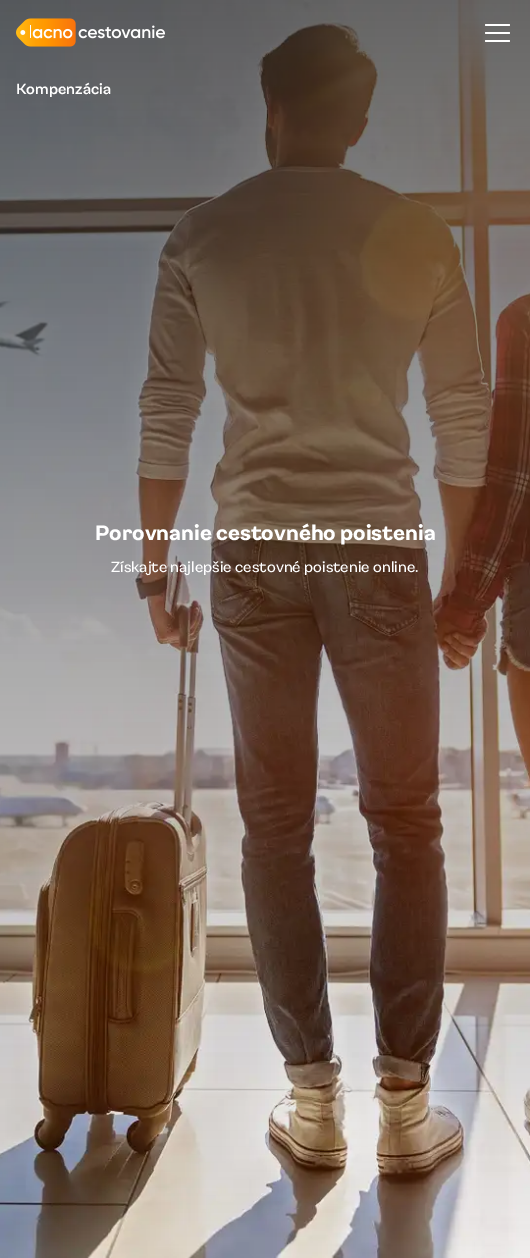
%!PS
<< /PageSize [530 1258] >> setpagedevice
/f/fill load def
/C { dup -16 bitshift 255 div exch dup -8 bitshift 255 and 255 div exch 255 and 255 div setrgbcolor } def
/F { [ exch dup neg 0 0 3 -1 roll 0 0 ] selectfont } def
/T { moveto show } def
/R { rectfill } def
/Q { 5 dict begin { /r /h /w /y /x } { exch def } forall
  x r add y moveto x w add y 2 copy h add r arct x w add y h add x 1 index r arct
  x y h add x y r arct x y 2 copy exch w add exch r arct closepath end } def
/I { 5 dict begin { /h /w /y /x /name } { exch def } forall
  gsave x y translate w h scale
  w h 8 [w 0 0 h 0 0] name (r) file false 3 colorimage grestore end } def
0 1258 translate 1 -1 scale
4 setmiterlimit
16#FFFFFF C
0 0 530 1258 R
(2.rgb) 0 0 530 1258 I
(1.rgb) 16 18 149 29 I
485 24 25 2 1 Q f
485 32 25 2 1 Q f
485 40 25 2 1 Q f
/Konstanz-SemiBold 14 F
(Kompenzácia) 16 94 T
/Konstanz-Bold 20 F
(Porovnanie cestovného poistenia) 95 540 T
/Konstanz-Medium 14 F
(Získajte najlepšie cestovné poistenie online.) 111 572 T
showpage
